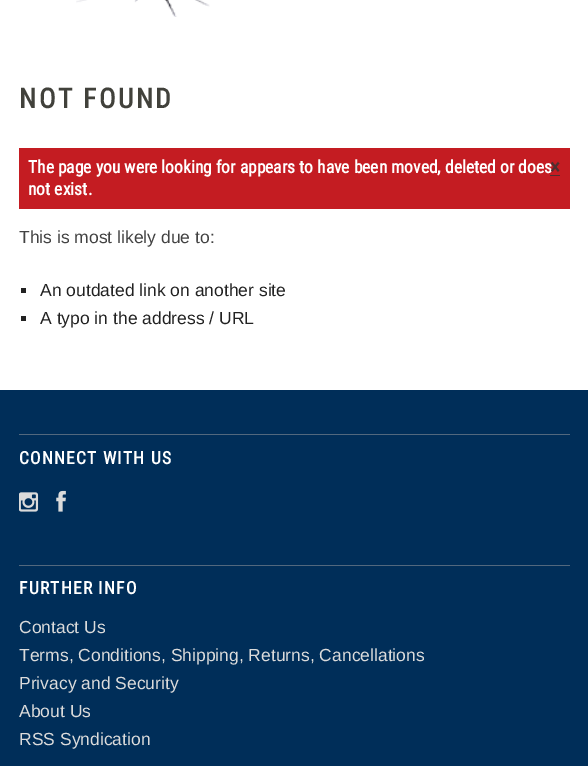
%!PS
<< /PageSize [588 766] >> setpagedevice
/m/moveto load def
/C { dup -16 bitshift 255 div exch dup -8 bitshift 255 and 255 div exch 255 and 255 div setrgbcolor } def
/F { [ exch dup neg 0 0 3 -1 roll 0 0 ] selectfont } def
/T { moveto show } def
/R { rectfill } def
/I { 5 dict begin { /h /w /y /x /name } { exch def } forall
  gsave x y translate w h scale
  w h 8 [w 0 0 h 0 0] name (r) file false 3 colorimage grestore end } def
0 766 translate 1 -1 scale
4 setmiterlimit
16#FFFFFF C
0 0 588 766 R
(1.rgb) 76 0 134 17 I
/RobotoCondensed-Bold 27.5 F
16#41413B C
19 108 m 2.5 0 (NOT FOUND) ashow
16#C41C22 C
19 148 551 61 R
/RobotoCondensed-Bold 17.5 F
16#FFFFFF C
(The page you were looking for appears to have been moved, deleted or does) 28 173 T
(not exist.) 28 195 T
/RobotoCondensed-Bold 21 F
16#502E30 C
(×) 550 174 T
550 175 10 1 R
/LiberationSans-Regular 17.5 F
16#424242 C
(This is most likely due to:) 19 243 T
16#222222 C
21 288 5 5 R
(An outdated link on another site) 40 296 T
21 316 5 5 R
(A typo in the address / URL) 40 324 T
16#002E59 C
0 390 588 376 R
16#52687E C
19 434 551 1 R
/RobotoCondensed-Bold 17.5 F
16#FFFFFF C
19 464 m 1.25 0 (CONNECT WITH US) ashow
(2.rgb) 19 492 20 20 I
(3.rgb) 56 490 10 22 I
16#52687E C
19 565 551 1 R
16#FFFFFF C
19 594 m 1.25 0 (FURTHER INFO) ashow
/LiberationSans-Regular 17.5 F
16#DBDBDB C
(Contact Us) 19 633 T
(Terms, Conditions, Shipping, Returns, Cancellations) 19 661 T
(Privacy and Security) 19 689 T
(About Us) 19 717 T
(RSS Syndication) 19 745 T
showpage
